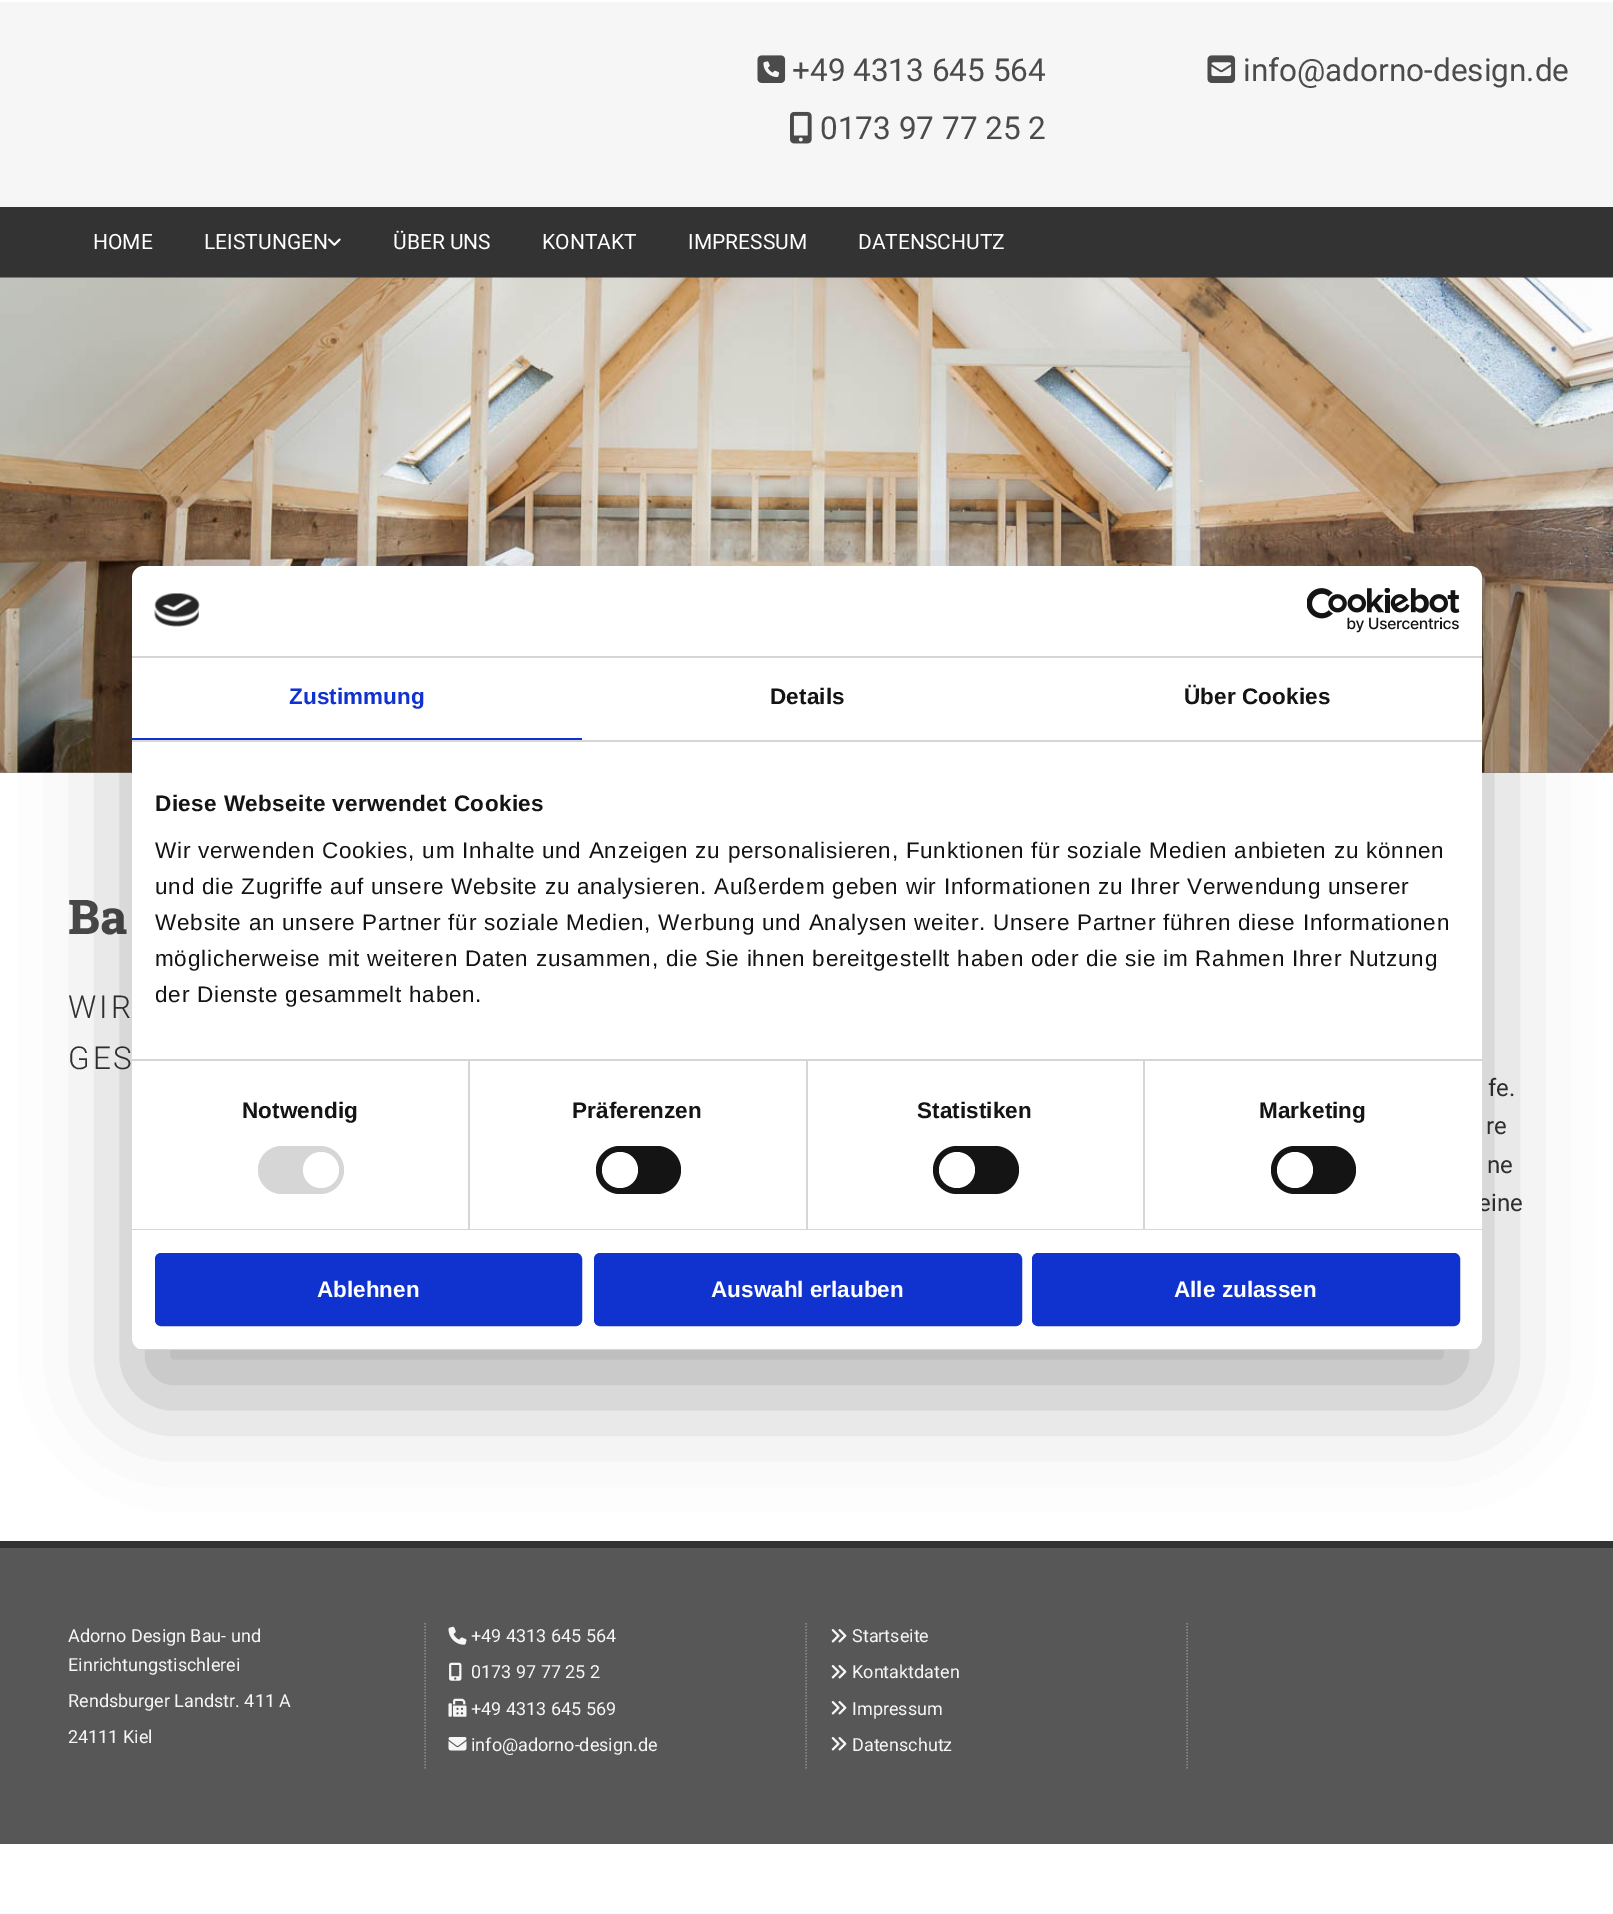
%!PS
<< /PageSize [1613 1914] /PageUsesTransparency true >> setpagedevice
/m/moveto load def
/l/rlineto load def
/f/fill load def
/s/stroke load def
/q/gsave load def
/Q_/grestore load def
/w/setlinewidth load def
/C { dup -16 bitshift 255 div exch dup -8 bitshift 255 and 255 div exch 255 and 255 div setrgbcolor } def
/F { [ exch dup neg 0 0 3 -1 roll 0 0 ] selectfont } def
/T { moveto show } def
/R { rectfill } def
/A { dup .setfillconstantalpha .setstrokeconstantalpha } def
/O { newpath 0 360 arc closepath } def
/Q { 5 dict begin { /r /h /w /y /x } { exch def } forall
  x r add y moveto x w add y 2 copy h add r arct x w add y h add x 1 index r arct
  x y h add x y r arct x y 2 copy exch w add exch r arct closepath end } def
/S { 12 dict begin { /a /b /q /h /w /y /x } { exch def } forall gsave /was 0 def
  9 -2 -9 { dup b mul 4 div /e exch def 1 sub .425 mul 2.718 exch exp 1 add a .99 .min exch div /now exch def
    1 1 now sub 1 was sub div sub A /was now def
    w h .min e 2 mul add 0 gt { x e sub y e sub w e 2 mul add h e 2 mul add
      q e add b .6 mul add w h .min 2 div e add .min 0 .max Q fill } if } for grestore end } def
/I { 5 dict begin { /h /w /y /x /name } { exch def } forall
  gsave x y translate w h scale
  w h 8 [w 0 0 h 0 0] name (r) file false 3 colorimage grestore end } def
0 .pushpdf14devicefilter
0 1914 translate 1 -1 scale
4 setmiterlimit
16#FFFFFF C
0 0 1613 1914 R
16#F6F6F6 C
0 2 1613 205 R
(1.rgb) 757 55 29 28 I
/Roboto-Regular 31.5 F
16#4B4B4B C
(+49 4313 645 564) 792 81 T
(2.rgb) 790 111 22 33 I
(0173 97 77 25 2) 820 139 T
(3.rgb) 1207 55 29 28 I
(info@adorno-design.de) 1243 81 T
16#333333 C
0 207 1613 71 R
/Roboto-Regular 21 F
16#FFFFFF C
(HOME) 93 249 T
(LEISTUNGEN) 204 249 T
(4.rgb) 328 238 13 8 I
(ÜBER UNS) 393 249 T
(KONTAKT) 542 249 T
(IMPRESSUM) 688 249 T
(DATENSCHUTZ) 858 249 T
16#8D8D8D C
0 772 1613 1 R
(5.rgb) 0 277 1613 496 I
/RobotoSlab-ExtraBold 48 F
16#4B4B4B C
(Ba) 68 934 T
/Roboto-Light 31.5 F
16#333333 C
68 1018 m 3 0 (WIR) ashow
68 1069 m 3 0 (GES) ashow
/Roboto-Regular 24 F
(fe.) 1488 1096 T
(re) 1486 1134 T
(ne) 1487 1173 T
(eine) 1478 1211 T
16#575757 C
0 1548 1613 296 R
16#333333 C
0 1541 1613 7 R
16#878787 C
1.5 w
[1.5 1.5] 0 setdash
425 1623 m 0 145.5 l s
/Roboto-Regular 18 F
16#F6F6F6 C
(Adorno Design Bau- und) 68 1642 T
(Einrichtungstischlerei) 68 1671 T
(Rendsburger Landstr. 411 A) 68 1707 T
(24111 Kiel) 68 1743 T
16#878787 C
806 1623 m 0 145.5 l s
(6.rgb) 448 1626 19 19 I
16#F6F6F6 C
(+49 4313 645 564) 471 1642 T
(7.rgb) 449 1662 13 19 I
(0173 97 77 25 2) 471 1678 T
(8.rgb) 448 1698 19 19 I
(+49 4313 645 569) 471 1715 T
(9.rgb) 448 1737 19 14 I
(info@adorno-design.de) 471 1751 T
16#878787 C
1187 1623 m 0 145.5 l s
(10.rgb) 831 1629 16 14 I
16#F6F6F6 C
(Startseite) 852 1642 T
(10.rgb) 831 1665 16 14 I
(Kontaktdaten) 852 1678 T
(10.rgb) 831 1701 16 14 I
(Impressum) 852 1715 T
(10.rgb) 831 1737 16 14 I
(Datenschutz) 852 1751 T
16#000000 C
132 614 1350 784 12 51 .3 S
16#FFFFFF C
132 566 1350 784 12 Q f
16#D6D6D6 C
132 656 1350 2 R
(11.rgb) 154 593 46 34 I
(12.rgb) 1307 588 153 45 I
132 740 1350 2 R
16#1032CF C
132 738 450 2 R
/LiberationSans-Bold 22.5 F
289 704 m .1 0 (Zustimmung) ashow
16#141414 C
770 704 m .1 0 (Details) ashow
1184 704 m .1 0 (Über Cookies) ashow
16#D6D6D6 C
132 1059 1350 2 R
16#141414 C
155 811 m .4 0 (Diese Webseite verwendet Cookies) ashow
/LiberationSans-Regular 22.5 F
155 858 m .75 0 (Wir verwenden Cookies, um Inhalte und Anzeigen zu personalisieren, Funktionen für soziale Medien anbieten zu können) ashow
155 894 m .75 0 (und die Zugriffe auf unsere Website zu analysieren. Außerdem geben wir Informationen zu Ihrer Verwendung unserer) ashow
155 930 m .75 0 (Website an unsere Partner für soziale Medien, Werbung und Analysen weiter. Unsere Partner führen diese Informationen) ashow
155 966 m .75 0 (möglicherweise mit weiteren Daten zusammen, die Sie ihnen bereitgestellt haben oder die sie im Rahmen Ihrer Nutzung) ashow
155 1002 m .75 0 (der Dienste gesammelt haben.) ashow
16#D6D6D6 C
132 1229 1350 1 R
468 1061 2 168 R
/LiberationSans-Bold 22.5 F
16#141414 C
242 1118 m .1 0 (Notwendig) ashow
16#D6D6D6 C
258 1146 86 48 24 Q f
16#FFFFFF C
321 1170 18 O f
16#D6D6D6 C
806 1061 2 168 R
16#141414 C
572 1118 m .1 0 (Präferenzen) ashow
596 1146 85 48 24 Q f
16#FFFFFF C
620 1170 18 O f
16#D6D6D6 C
1143 1061 2 168 R
16#141414 C
917 1118 m .1 0 (Statistiken) ashow
933 1146 86 48 24 Q f
16#FFFFFF C
957 1170 18 O f
16#141414 C
1259 1118 m .1 0 (Marketing) ashow
1271 1146 85 48 24 Q f
16#FFFFFF C
1295 1170 18 O f
q
132 566 1350 784 12 Q clip newpath
16#D6D6D6 C
132 1349 1350 1 R
Q_
16#1032CF C
156.5 1254.5 424 70 4.5 Q q f Q_
3 w
[] 0 setdash
s
16#FFFFFF C
(Ablehnen) 317 1297 T
16#1032CF C
595.5 1254.5 425 70 4.5 Q q f Q_
s
16#FFFFFF C
(Auswahl erlauben) 711 1297 T
16#1032CF C
1033.5 1254.5 425 70 4.5 Q q f Q_
s
16#FFFFFF C
(Alle zulassen) 1174 1297 T
.poppdf14devicefilter showpage
